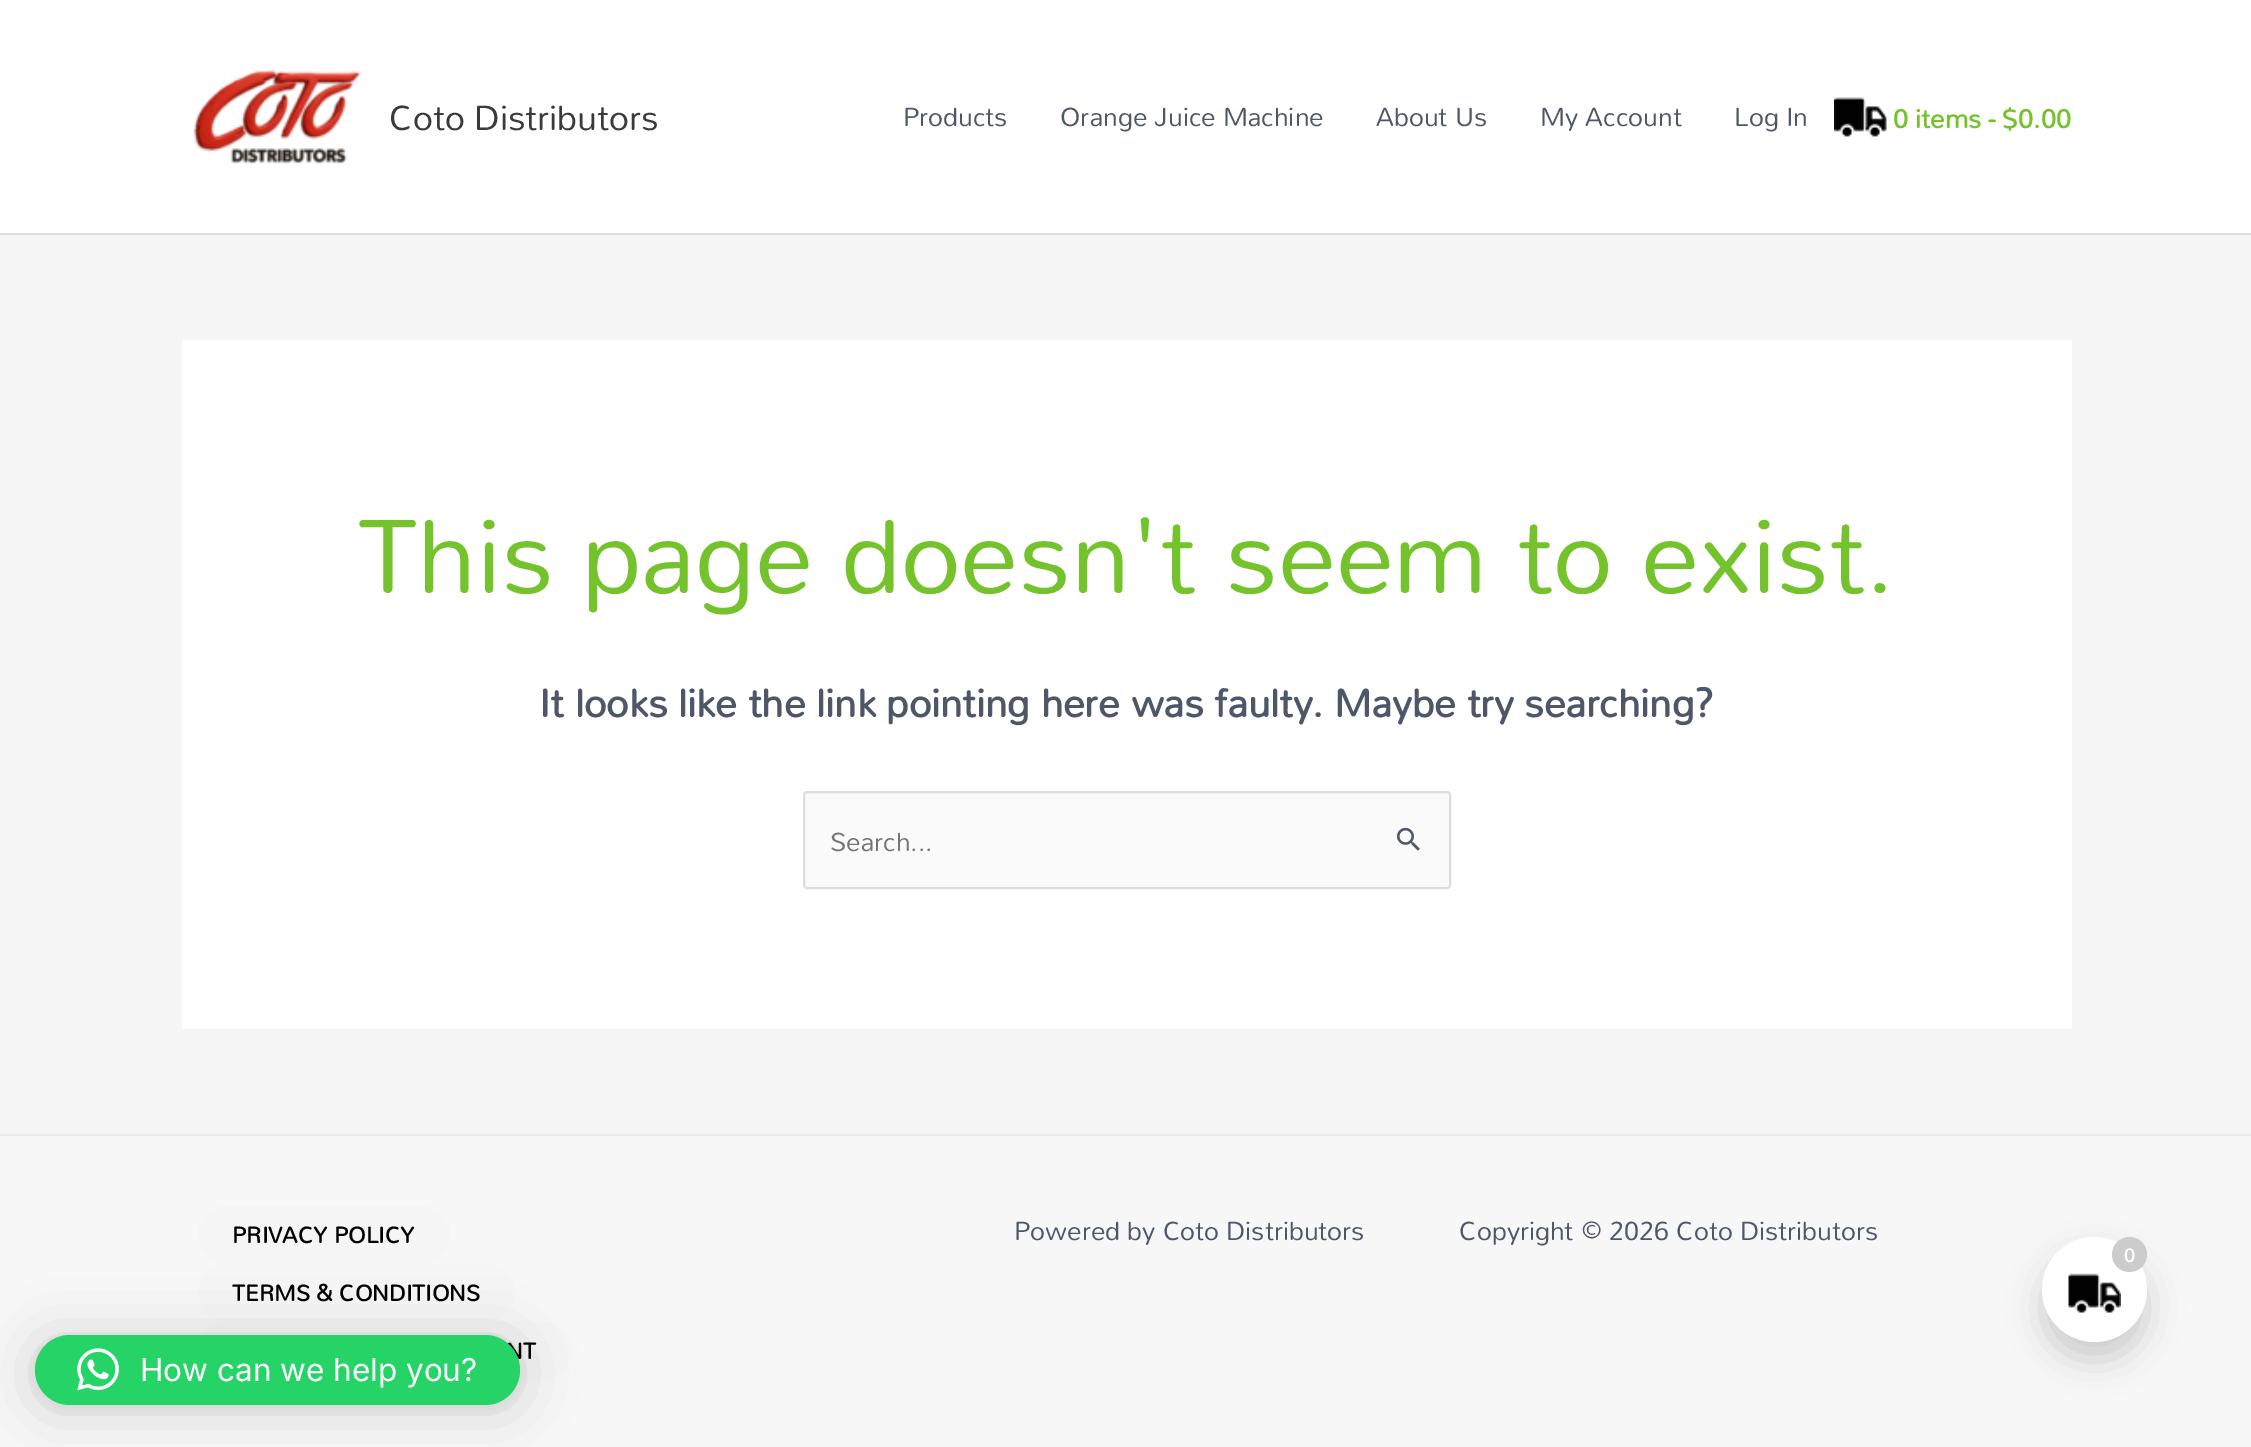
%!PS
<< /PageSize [2251 1447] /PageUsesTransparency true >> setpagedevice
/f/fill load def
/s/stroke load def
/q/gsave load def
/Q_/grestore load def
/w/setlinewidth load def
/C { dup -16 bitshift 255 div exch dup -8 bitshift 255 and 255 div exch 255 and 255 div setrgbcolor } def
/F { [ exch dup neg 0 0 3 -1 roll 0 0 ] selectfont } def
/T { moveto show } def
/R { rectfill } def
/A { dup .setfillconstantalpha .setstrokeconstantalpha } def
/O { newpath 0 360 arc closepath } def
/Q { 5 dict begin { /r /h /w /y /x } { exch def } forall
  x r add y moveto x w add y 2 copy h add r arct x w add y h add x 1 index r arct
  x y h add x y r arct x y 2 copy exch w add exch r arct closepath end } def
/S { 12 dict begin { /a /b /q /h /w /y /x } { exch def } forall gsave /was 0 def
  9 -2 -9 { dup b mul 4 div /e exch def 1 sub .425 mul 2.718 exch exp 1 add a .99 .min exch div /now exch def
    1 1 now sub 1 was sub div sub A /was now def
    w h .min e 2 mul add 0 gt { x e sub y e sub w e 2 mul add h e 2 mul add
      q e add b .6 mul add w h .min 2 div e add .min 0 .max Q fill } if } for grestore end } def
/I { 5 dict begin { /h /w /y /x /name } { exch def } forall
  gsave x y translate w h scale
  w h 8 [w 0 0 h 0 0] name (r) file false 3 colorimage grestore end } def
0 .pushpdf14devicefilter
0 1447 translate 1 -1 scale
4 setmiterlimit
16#F5F5F5 C
0 0 2251 1447 R
16#FFFFFF C
0 0 2251 233 R
16#DDDDDD C
0 233 2251 2 R
(1.rgb) 193 69 168 96 I
/Mandali-Regular 35 F
16#3A3A3A C
(Coto Distributors) 389 130 T
/Mandali-Regular 26.25 F
16#4E5768 C
(Products) 903 126 T
(Orange Juice Machine) 1060 126 T
(About Us) 1376 126 T
(My Account) 1540 126 T
(Log In) 1734 126 T
(2.rgb) 1834 97 53 40 I
/Mandali-Bold 26.25 F
16#75C32C C
(0 items) 1893 128 T
(-) 1988 128 T
($0.00) 2002 128 T
16#FFFFFF C
182 340 1890 689 R
/Mandali-Regular 105 F
16#75C32C C
(This page doesn't seem to exist.) 358 593 T
/Mandali-Bold 39.4 F
16#4E5768 C
(It looks like the link pointing here was faulty. Maybe try searching?) 539 717 T
16#FAFAFA C
804 792 646 96 3 Q q f Q_
16#DDDDDD C
2 w
s
/Mandali-Regular 26.25 F
16#757575 C
(Search...) 830 851 T
(3.rgb) 1396 827 24 24 I
16#F7F7F8 C
0 1136 2251 311 R
16#EAEAEA C
0 1134 2251 2 R
16#F5F5F5 C
198 1206 252 58 29 Q f
/Mandali-Bold 22.75 F
16#000000 C
(PRIVACY POLICY) 232 1243 T
16#F5F5F5 C
198 1264 317 57 28.5 Q f
16#000000 C
(TERMS & CONDITIONS) 232 1301 T
16#F5F5F5 C
198 1321 373 58 29 Q f
16#000000 C
(NT) 506 1359 T
/Mandali-Regular 26.25 F
16#4E5768 C
(Powered by Coto Distributors) 1014 1240 T
(Copyright © 2026 Coto Distributors) 1459 1240 T
16#CCCCCC C
2042 1255 105 105 52.5 17.5 1 S
16#FFFFFF C
2094.5 1289.5 52.5 O f
16#CCCCCC C
2129.5 1254.5 17.5 O f
/Mandali-Bold 19 F
16#FFFFFF C
(0) 2124 1262 T
(4.rgb) 2068 1273 53 40 I
16#000000 C
35 1339 485 70 35 28 .16 S
35 1337 485 70 35 5 .06 S
16#25D366 C
35 1335 485 70 35 Q f
(5.rgb) 77 1348 42 43 I
/Inter-Regular 31.5 F
16#FFFFFF C
(How can we help you?) 140 1381 T
.poppdf14devicefilter showpage
